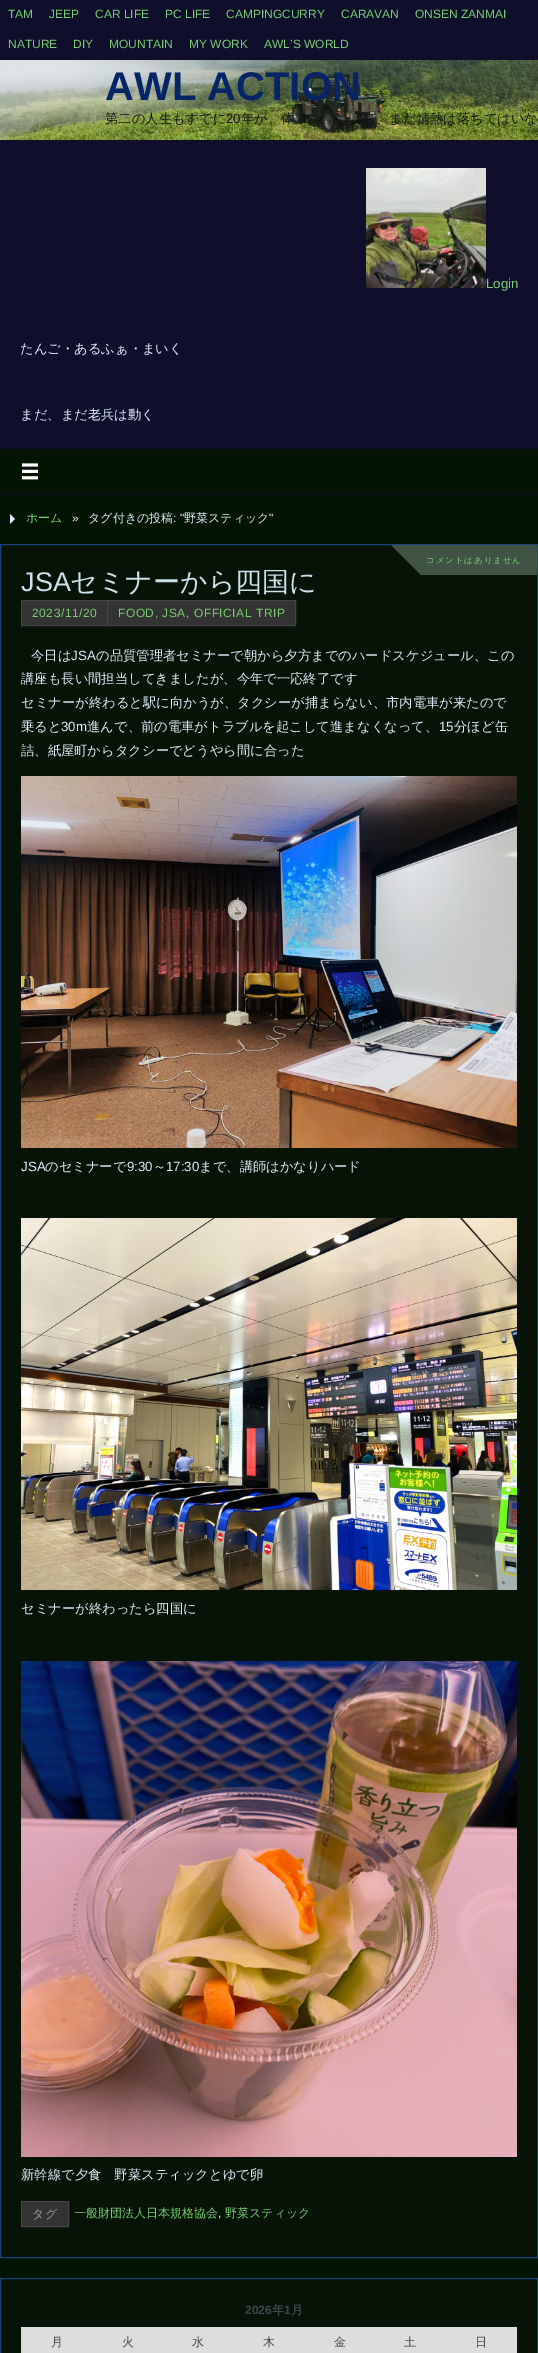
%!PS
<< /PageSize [538 2353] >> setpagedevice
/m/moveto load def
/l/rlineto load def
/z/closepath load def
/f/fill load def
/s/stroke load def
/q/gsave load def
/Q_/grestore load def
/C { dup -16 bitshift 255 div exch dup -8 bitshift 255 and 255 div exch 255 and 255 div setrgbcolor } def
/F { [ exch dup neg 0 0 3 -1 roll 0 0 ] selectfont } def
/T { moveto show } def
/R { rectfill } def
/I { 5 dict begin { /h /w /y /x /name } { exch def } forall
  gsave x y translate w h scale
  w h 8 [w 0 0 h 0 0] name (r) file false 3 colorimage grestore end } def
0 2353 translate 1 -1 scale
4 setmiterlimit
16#041403 C
0 0 538 2353 R
16#0F0F2C C
0 0 538 494 R
/LiberationSans-Regular 12 F
16#79CF72 C
(TAM) 8 18 T
(JEEP) 49 18 T
(CAR LIFE) 95 18 T
(PC LIFE) 165 18 T
(CAMPINGCURRY) 226 18 T
(CARAVAN) 341 18 T
(ONSEN ZANMAI) 415 18 T
(NATURE) 8 48 T
(DIY) 73 48 T
(MOUNTAIN) 109 48 T
(MY WORK) 189 48 T
(AWL’S WORLD) 264 48 T
(1.rgb) 0 60 538 80 I
/LiberationSans-Bold 40 F
16#072467 C
(AWL ACTION) 105 100 T
/WenQuanYiZenHei-Medium 13.3 F
16#16171A C
(第二の人生もすでに) 105 123 T
/LiberationSans-Regular 13.3 F
(20) 226 123 T
/WenQuanYiZenHei-Medium 13.3 F
(年が、体) 241 123 T
(、まだ情熱は落ちてはいな) 376 123 T
(2.rgb) 366 168 120 120 I
/LiberationSans-Regular 13.3 F
16#79CF72 C
(Login) 486 288 T
/WenQuanYiZenHei-Medium 13.3 F
16#DDECFB C
(たんご・あるふぁ・まいく) 20 353 T
(まだ、まだ老兵は動く) 20 419 T
16#041403 C
0 449 538 44 R
(3.rgb) 22 463 16 17 I
16#DDECFB C
10 524 m 0 -10 l 5 5 l z f
/WenQuanYiZenHei-Medium 12 F
16#79CF72 C
(ホーム) 26 522 T
/LiberationSans-Regular 12 F
16#DDECFB C
(») 72 522 T
/WenQuanYiZenHei-Medium 12 F
(タグ付きの投稿) 88 522 T
/LiberationSans-Regular 12 F
(: ") 173 522 T
/WenQuanYiZenHei-Medium 12 F
(野菜スティック) 184 522 T
/LiberationSans-Regular 12 F
(") 269 522 T
16#061306 C
.5 544.5 m 537 0 l 0 1713 l -537 0 l z q f Q_
16#1A437B C
s
16#415345 C
421 545 116 30 R
391 545 m 30 0 l 0 30 l z f
/WenQuanYiZenHei-Medium 8.4 F
16#79CF72 C
426 563 m 1 0 (コメントはありません) ashow
/LiberationSans-Regular 27 F
16#CBE2EC C
(JSA) 21 591 T
/WenQuanYiZenHei-Medium 27 F
(セミナーから四国に) 70 591 T
16#333333 C
21.5 600.5 m 86 0 l 0 25 l -86 0 l z q f Q_
16#444444 C
s
/LiberationSans-Regular 12 F
16#79CF72 C
32 617 m .5 0 (2023/11/20) ashow
16#333333 C
107.5 600.5 m 188 0 l 0 25 l -188 0 l z q f Q_
16#444444 C
s
16#79CF72 C
118 617 m .5 0 (FOOD) ashow
16#999999 C
155 617 m .5 0 (,) ashow
16#79CF72 C
162 617 m .5 0 (JSA) ashow
16#999999 C
186 617 m .5 0 (,) ashow
16#79CF72 C
194 617 m .5 0 (OFFICIAL TRIP) ashow
/WenQuanYiZenHei-Medium 13.3 F
16#DDECFB C
(今日は) 31 660 T
/LiberationSans-Regular 13.3 F
(JSA) 71 660 T
/WenQuanYiZenHei-Medium 13.3 F
(の品質管理者セミナーで朝から夕方までのハードスケジュール、この) 96 660 T
(講座も長い間担当してきましたが、今年で一応終了です) 21 683 T
(セミナーが終わると駅に向かうが、タクシーが捕まらない、市内電車が来たので) 21 707 T
(乗ると) 21 731 T
/LiberationSans-Regular 13.3 F
(30m) 61 731 T
/WenQuanYiZenHei-Medium 13.3 F
(進んで、前の電車がトラブルを起こして進まなくなって、) 87 731 T
/LiberationSans-Regular 13.3 F
(15) 439 731 T
/WenQuanYiZenHei-Medium 13.3 F
(分ほど缶) 454 731 T
(詰、紙屋町からタクシーでどうやら間に合った) 21 755 T
(4.rgb) 21 776 496 372 I
/LiberationSans-Regular 13.3 F
(JSA) 21 1171 T
/WenQuanYiZenHei-Medium 13.3 F
(のセミナーで) 45 1171 T
/LiberationSans-Regular 13.3 F
(9:30) 127 1171 T
/WenQuanYiZenHei-Medium 13.3 F
(～) 153 1171 T
/LiberationSans-Regular 13.3 F
(17:30) 166 1171 T
/WenQuanYiZenHei-Medium 13.3 F
(まで、講師はかなりハード) 199 1171 T
(5.rgb) 21 1218 496 372 I
(セミナーが終わったら四国に) 21 1613 T
(6.rgb) 21 1661 496 496 I
(新幹線で夕食　野菜スティックとゆで卵) 21 2179 T
16#333333 C
21.5 2201.5 m 47 0 l 0 25 l -47 0 l z q f Q_
16#444444 C
s
/WenQuanYiZenHei-Medium 12 F
16#999999 C
32 2218 m .5 0 (タグ) ashow
16#79CF72 C
(一般財団法人日本規格協会) 74 2217 T
/LiberationSans-Regular 12 F
16#DDECFB C
(,) 218 2217 T
/WenQuanYiZenHei-Medium 12 F
16#79CF72 C
(野菜スティック) 225 2217 T
16#061306 C
.5 2278.5 m 537 0 l 0 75 l -537 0 l z q f Q_
16#1A437B C
s
/LiberationSans-Bold 12 F
16#40464D C
(2026) 245 2314 T
/WenQuanYiZenHei-Bold 12 F
(年) 272 2314 T
/LiberationSans-Bold 12 F
(1) 284 2314 T
/WenQuanYiZenHei-Bold 12 F
(月) 291 2314 T
16#DDDDDD C
21 2327 496 26 R
/WenQuanYiZenHei-Medium 12 F
16#40464D C
(月) 51 2346 T
(火) 122 2346 T
(水) 192 2346 T
(木) 263 2346 T
(金) 334 2346 T
(土) 404 2346 T
(日) 475 2346 T
showpage
